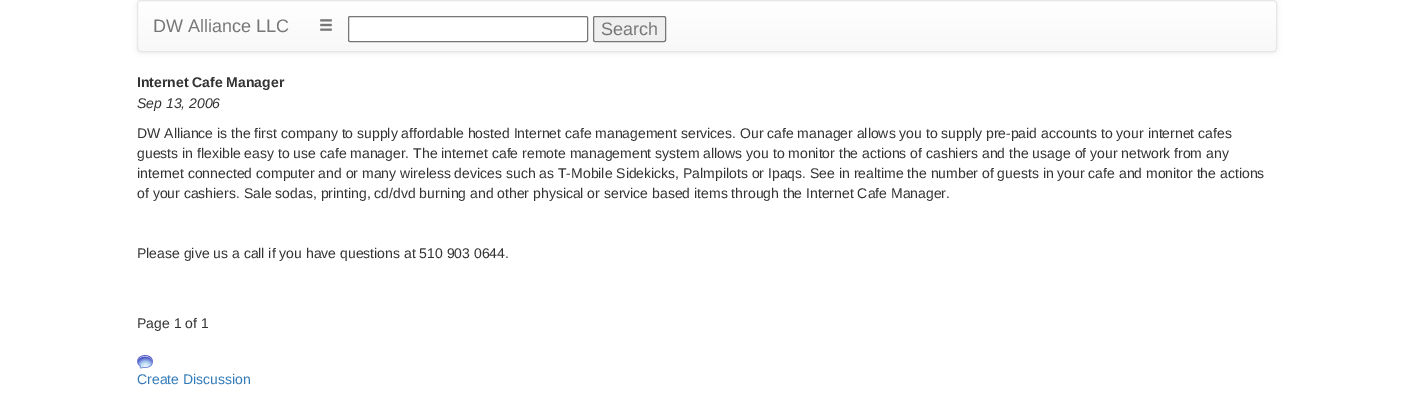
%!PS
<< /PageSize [1414 394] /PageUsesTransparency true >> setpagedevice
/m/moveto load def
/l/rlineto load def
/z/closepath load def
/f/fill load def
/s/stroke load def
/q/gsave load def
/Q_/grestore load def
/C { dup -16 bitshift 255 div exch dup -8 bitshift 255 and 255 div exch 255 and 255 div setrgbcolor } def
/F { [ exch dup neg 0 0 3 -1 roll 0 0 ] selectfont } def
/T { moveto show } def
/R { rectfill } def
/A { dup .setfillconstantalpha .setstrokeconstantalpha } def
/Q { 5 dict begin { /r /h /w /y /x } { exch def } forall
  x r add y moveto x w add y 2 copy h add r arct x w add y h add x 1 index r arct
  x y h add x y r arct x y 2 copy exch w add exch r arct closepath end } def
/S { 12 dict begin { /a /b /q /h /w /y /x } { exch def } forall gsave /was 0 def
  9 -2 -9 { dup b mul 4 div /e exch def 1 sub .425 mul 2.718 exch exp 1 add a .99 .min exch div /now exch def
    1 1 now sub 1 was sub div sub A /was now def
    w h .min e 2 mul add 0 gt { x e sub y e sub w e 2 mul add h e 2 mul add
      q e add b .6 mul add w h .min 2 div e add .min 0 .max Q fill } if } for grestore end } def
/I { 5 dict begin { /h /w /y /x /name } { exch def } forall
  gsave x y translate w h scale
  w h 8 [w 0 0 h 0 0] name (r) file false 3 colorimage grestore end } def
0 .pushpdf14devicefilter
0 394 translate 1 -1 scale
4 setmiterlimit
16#FFFFFF C
0 0 1414 394 R
16#000000 C
137 1 1140 52 4 2.5 .07 S
q
137 0 1140 52 4 Q clip newpath
q 137 1 m 1140 0 l 0 50 l -1140 0 l z clip newpath
<< /ShadingType 2 /ColorSpace /DeviceRGB /Coords [707 1 707 51] /Extend [true true] /Function << /FunctionType 2 /Domain [0 1] /C0 [1 1 1] /C1 [.973 .973 .973] /N 1 >> >> shfill Q_
Q_
16#E7E7E7 C
137.5 .5 1139 51 3.5 Q s
/LiberationSans-Regular 18 F
16#777777 C
(DW Alliance LLC) 153 32 T
(1.rgb) 320 19 12 12 I
16#FFFFFF C
348.5 16.5 239 25 1.5 Q q f Q_
16#767676 C
s
16#EFEFEF C
593.5 16.5 72 25 1.5 Q q f Q_
16#767676 C
s
16#777777 C
(Search) 601 35 T
/LiberationSans-Bold 14 F
16#333333 C
(Internet Cafe Manager) 137 87 T
/LiberationSans-Italic 14 F
(Sep 13, 2006) 137 108 T
/LiberationSans-Regular 14 F
(DW Alliance is the first company to supply affordable hosted Internet cafe management services. Our cafe manager allows you to supply pre-paid accounts to your internet cafes) 137 138 T
(guests in flexible easy to use cafe manager. The internet cafe remote management system allows you to monitor the actions of cashiers and the usage of your network from any) 137 158 T
(internet connected computer and or many wireless devices such as T-Mobile Sidekicks, Palmpilots or Ipaqs. See in realtime the number of guests in your cafe and monitor the actions) 137 178 T
(of your cashiers. Sale sodas, printing, cd/dvd burning and other physical or service based items through the Internet Cafe Manager.) 137 198 T
(Please give us a call if you have questions at 510 903 0644.) 137 258 T
(Page 1 of 1) 137 328 T
(2.rgb) 137 355 16 14 I
16#337AB7 C
(Create Discussion) 137 384 T
.poppdf14devicefilter showpage
